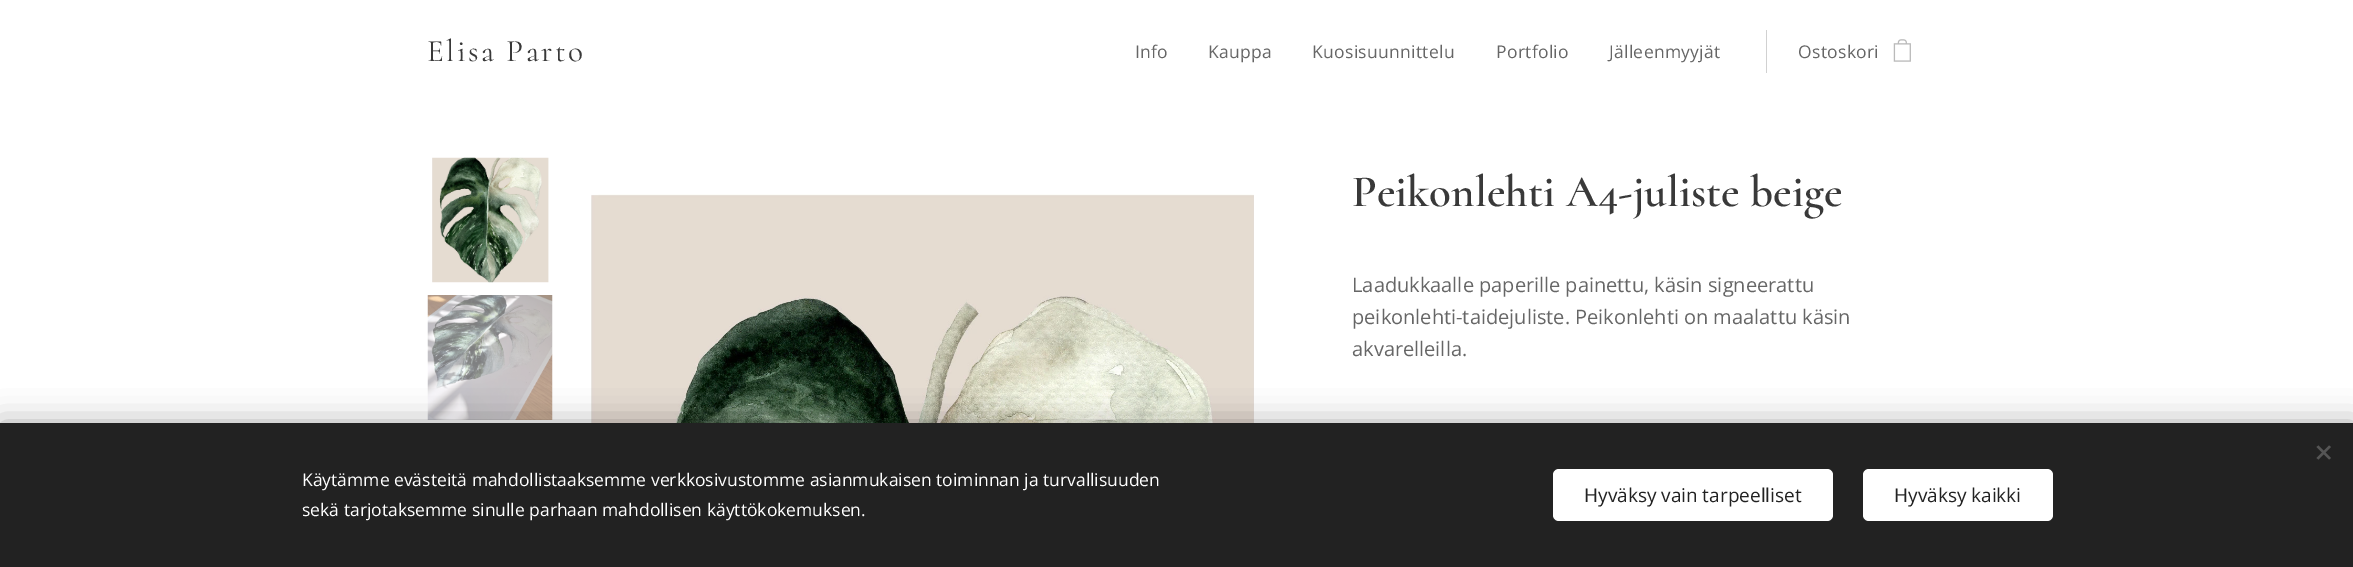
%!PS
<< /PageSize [2353 567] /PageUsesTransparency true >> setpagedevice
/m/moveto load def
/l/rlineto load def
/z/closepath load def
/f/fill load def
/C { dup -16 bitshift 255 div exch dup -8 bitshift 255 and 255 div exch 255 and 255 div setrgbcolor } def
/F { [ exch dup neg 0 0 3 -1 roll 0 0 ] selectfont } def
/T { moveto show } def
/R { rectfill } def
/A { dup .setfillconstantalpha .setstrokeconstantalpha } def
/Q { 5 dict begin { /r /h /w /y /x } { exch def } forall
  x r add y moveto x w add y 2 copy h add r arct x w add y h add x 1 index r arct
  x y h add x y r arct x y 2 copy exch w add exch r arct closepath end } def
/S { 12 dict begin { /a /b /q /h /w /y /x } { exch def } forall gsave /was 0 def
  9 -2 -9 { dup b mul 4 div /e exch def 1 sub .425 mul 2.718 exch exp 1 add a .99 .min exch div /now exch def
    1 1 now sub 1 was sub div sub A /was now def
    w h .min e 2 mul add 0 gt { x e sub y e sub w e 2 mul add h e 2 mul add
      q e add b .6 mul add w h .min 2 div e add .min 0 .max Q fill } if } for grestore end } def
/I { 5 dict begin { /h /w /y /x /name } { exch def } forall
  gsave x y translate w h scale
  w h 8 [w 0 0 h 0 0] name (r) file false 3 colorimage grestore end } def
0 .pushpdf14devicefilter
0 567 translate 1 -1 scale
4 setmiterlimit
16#FFFFFF C
0 0 2353 567 R
/Cormorant-Regular 31.25 F
16#393939 C
427 61 m 2.5 0 (Elisa Parto) ashow
/OpenSans-Regular 17.5 F
16#666666 C
1135 58 m .3 0 (Info) ashow
1208 58 m .3 0 (Kauppa) ashow
1312 58 m .3 0 (Kuosisuunnittelu) ashow
1496 58 m .3 0 (Portfolio) ashow
1609 58 m .3 0 (Jälleenmyyjät) ashow
16#D1D1D1 C
1766 30 1 43 R
16#666666 C
1798 58 m .3 0 (Ostoskori) ashow
(1.rgb) 1893 39 18 23 I
(2.rgb) 432 157 117 126 I
(3.rgb) 427 295 126 125 I
(4.rgb) 591 194 663 229 I
/Cormorant-SemiBold 45 F
16#393939 C
(Peikonlehti A4-juliste beige) 1352 206 T
/OpenSans-Regular 20 F
16#666666 C
(Laadukkaalle paperille painettu, käsin signeerattu) 1352 292 T
(peikonlehti-taidejuliste. Peikonlehti on maalattu käsin) 1352 324 T
(akvarelleilla.) 1352 356 T
16#000000 C
0 423 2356 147 0 15.5 .33 S
16#222222 C
0 423 2353 144 R
16#555555 C
2316.5 458 m 12.5 -12.5 l 2 1.5 l -12.5 12.5 l z f
2318.5 445.5 m 12.5 12.5 l -2 1.5 l -12.5 -12.5 l z f
/OpenSans-Regular 17.5 F
16#FFFFFF C
(Käytämme evästeitä mahdollistaaksemme verkkosivustomme asianmukaisen toiminnan ja turvallisuuden) 302 486 T
(sekä tarjotaksemme sinulle parhaan mahdollisen käyttökokemuksen.) 302 516 T
1553 469 280 52 6 Q f
/OpenSans-Regular 19 F
16#222222 C
(Hyväksy vain tarpeelliset) 1584 502 T
16#FFFFFF C
1863 469 190 52 6 Q f
16#222222 C
(Hyväksy kaikki) 1894 502 T
.poppdf14devicefilter showpage
